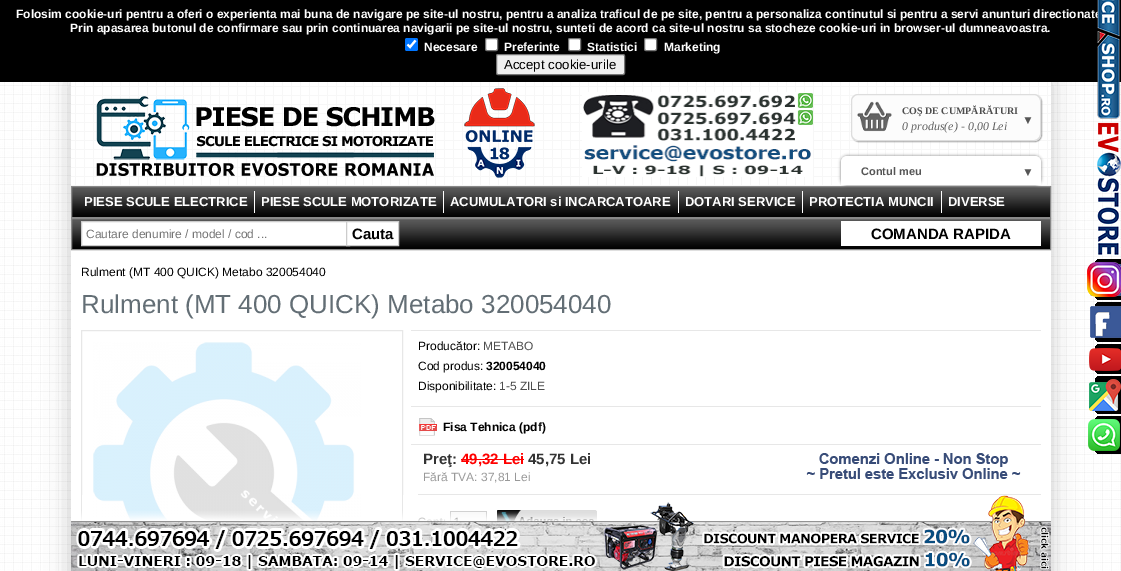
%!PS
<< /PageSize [1121 571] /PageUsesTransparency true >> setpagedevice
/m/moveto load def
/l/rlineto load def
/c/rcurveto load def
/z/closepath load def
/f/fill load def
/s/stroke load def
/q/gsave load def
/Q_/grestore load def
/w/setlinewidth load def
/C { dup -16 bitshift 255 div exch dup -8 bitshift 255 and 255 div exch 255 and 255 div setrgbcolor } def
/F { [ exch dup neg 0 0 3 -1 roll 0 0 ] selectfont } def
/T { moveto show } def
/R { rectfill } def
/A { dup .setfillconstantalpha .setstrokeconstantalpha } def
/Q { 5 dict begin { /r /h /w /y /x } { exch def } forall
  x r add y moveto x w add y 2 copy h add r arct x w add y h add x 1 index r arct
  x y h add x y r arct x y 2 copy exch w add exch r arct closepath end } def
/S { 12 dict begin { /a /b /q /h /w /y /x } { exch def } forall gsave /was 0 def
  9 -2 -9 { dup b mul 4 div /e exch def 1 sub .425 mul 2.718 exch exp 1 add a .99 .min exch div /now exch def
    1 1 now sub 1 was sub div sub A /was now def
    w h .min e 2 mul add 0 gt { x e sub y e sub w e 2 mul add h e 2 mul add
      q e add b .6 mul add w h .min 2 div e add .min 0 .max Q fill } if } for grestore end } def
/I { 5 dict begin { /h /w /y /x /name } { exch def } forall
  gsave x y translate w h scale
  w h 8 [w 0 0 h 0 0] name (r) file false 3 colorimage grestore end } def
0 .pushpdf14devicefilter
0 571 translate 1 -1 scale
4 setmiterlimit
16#FFFFFF C
0 0 1121 571 R
(1.rgb) 0 82 1121 489 I
16#000000 C
0 0 1121 82 R
/LiberationSans-Bold 12 F
16#FFFFFF C
(Folosim cookie-uri pentru a oferi o experienta mai buna de navigare pe site-ul nostru, pentru a analiza traficul de pe site, pentru a personaliza continutul si pentru a servi anunturi directionate) 16 18 T
(Prin apasarea butonul de confirmare sau prin continuarea navigarii pe site-ul nostru, sunteti de acord ca site-ul nostru sa stocheze cookie-uri in browser-ul dumneavoastra.) 70 32 T
16#000000 C
71 82 980 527 0 12.5 .2 S
16#0075FF C
405 38 13 13 2 Q f
16#FFFFFF C
2.1 w
407.5 44.5 m 2.5 2.5 l 5.5 -6.5 l s
(Necesare) 424 51 T
485.5 38.5 12 12 1.5 Q q f Q_
16#767676 C
1 w
s
16#FFFFFF C
(Preferinte) 504 51 T
568.5 38.5 12 12 1.5 Q q f Q_
16#767676 C
s
16#FFFFFF C
(Statistici) 587 51 T
644.5 38.5 12 12 1.5 Q q f Q_
16#767676 C
s
16#FFFFFF C
(Marketing) 664 51 T
16#EFEFEF C
496.5 54.5 128 20 1.5 Q q f Q_
16#767676 C
s
/LiberationSans-Regular 13.25 F
16#000000 C
(Accept cookie-urile) 504 69 T
(2.rgb) 1097 0 23 119 I
16#FFFFFF C
71 82 980 489 R
(3.rgb) 71 82 980 104 I
(4.rgb) 96 96 339 80 I
(5.rgb) 464 88 71 90 I
(6.rgb) 582 92 231 85 I
16#000000 C
852 95 190 47 7 .5 .35 S
16#FCFCFC C
851 94 190 47 7 Q f
(7.rgb) 857 101 35 31 I
16#DDDDDD C
851.5 94.5 189 46 6.5 Q s
/LiberationSerif-Bold 10 F
16#4D4D4D C
(COŞ DE CUMPĂRĂTURI) 902 114 T
/LiberationSerif-Italic 12 F
16#626262 C
(0 produs\(e\) - 0,00 Lei) 902 130 T
/LiberationSans-Regular 12 F
16#555555 C
(▼) 1022 124 T
(8.rgb) 72 187 978 30 I
16#888888 C
71.5 186.5 979 31 rectstroke
16#000000 C
841 156 200 29 6 1.5 .45 S
16#FFFFFF C
847 156 m 188 0 l 3.5 0 6 2.5 6 6 c 0 23 l -200 0 l 0 -23 l 0 -3.5 2.5 -6 6 -6 c z f
/LiberationSans-Bold 11 F
16#555555 C
(Contul meu) 861 175 T
/LiberationSans-Bold 12 F
(▼) 1022 176 T
(8.rgb) 72 219 978 30 I
16#888888 C
71.5 218.5 979 31 rectstroke
16#FFFFFF C
82 222 264 23 R
16#CCCCCC C
81.5 221.5 268 24 rectstroke
/LiberationSans-Regular 12 F
16#757575 C
(Cautare denumire / model / cod ...) 86 238 T
16#FFFFFF C
346.5 221.5 m 52 0 l 0 24 l -52 0 l z q f Q_
16#CCCCCC C
s
/LiberationSans-Bold 15 F
16#000000 C
(Cauta) 352 239 T
16#FFFFFF C
841 221 200 25 R
16#000000 C
(COMANDA RAPIDA) 871 239 T
/LiberationSans-Bold 13 F
16#FFFFFF C
(PIESE SCULE ELECTRICE) 84 206 T
254 191 1 22 R
(PIESE SCULE MOTORIZATE) 261 206 T
443 191 1 22 R
(ACUMULATORI si INCARCATOARE) 450 206 T
678 191 1 22 R
(DOTARI SERVICE) 685 206 T
802 191 1 22 R
(PROTECTIA MUNCII) 809 206 T
941 191 1 22 R
(DIVERSE) 948 206 T
/LiberationSans-Regular 12 F
16#000000 C
(Rulment \(MT 400 QUICK\) Metabo 320054040) 81 276 T
/LiberationSans-Regular 26 F
16#636E75 C
(Rulment \(MT 400 QUICK\) Metabo 320054040) 81 313 T
16#E7E7E7 C
81.5 330.5 321 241 rectstroke
(9.rgb) 93 342 268 229 I
411 330 630 1 R
411 406 630 1 R
/LiberationSans-Regular 12 F
16#000000 C
(Producător:) 418 350 T
16#4D4D4D C
(METABO) 483 350 T
16#000000 C
(Cod produs:) 418 370 T
/LiberationSans-Bold 12 F
(320054040) 486 370 T
/LiberationSans-Regular 12 F
(Disponibilitate:) 418 390 T
16#4D4D4D C
(1-5 ZILE) 499 390 T
16#E7E7E7 C
411 444 630 1 R
(10.rgb) 419 418 18 18 I
/LiberationSans-Bold 12 F
16#000000 C
(Fisa Tehnica \(pdf\)) 443 431 T
16#E7E7E7 C
418 494 623 1 R
/LiberationSans-Bold 15 F
16#333333 C
(Preţ:) 423 464 T
16#FF0000 C
(49,32 Lei) 461 464 T
461 459 63 1 R
16#333333 C
(45,75 Lei) 528 464 T
(11.rgb) 806 453 215 26 I
/LiberationSans-Regular 12 F
16#999999 C
(Fără TVA: 37,81 Lei) 423 481 T
16#F8F8F8 C
450.5 511.5 m 36 0 l 0 21 l -36 0 l z q f Q_
16#CCCCCC C
s
(12.rgb) 497 510 100 21 I
(13.rgb) 1096 122 25 133 I
(14.rgb) 1087 259 34 41 I
(15.rgb) 1090 302 31 40 I
(16.rgb) 1089 344 32 30 I
(17.rgb) 1089 376 32 38 I
(18.rgb) 1088 416 33 38 I
(19.rgb) 71 495 980 76 I
.poppdf14devicefilter showpage
